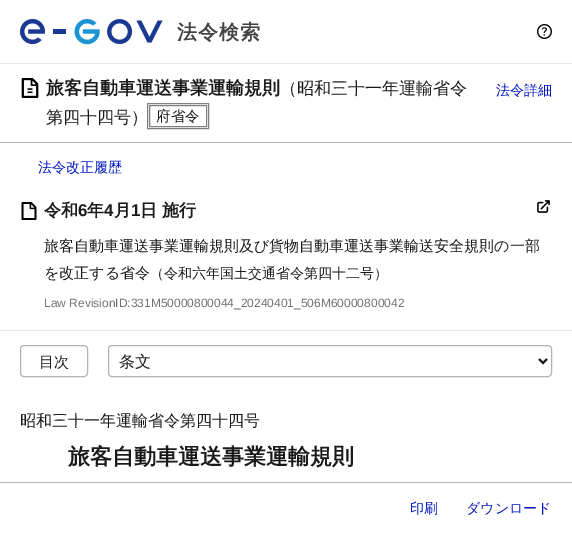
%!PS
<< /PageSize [572 535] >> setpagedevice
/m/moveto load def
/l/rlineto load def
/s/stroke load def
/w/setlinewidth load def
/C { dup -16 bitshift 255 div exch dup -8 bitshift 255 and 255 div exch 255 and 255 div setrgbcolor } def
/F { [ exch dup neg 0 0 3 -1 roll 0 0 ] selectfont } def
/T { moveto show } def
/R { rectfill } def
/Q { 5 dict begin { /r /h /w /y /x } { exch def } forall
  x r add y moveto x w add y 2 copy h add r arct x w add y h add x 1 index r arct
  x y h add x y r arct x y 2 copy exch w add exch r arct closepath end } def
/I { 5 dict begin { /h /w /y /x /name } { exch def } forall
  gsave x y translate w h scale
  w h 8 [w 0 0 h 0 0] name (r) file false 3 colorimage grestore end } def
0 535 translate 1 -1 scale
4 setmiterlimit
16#FFFFFF C
0 0 572 535 R
16#E6E6E6 C
0 63 572 1 R
(1.rgb) 20 19 143 26 I
/WenQuanYiZenHei-Bold 20 F
16#444444 C
177 39 m 1 0 (法令検索) ashow
(2.rgb) 537 24 15 15 I
16#B3B3B3 C
0 142 572 1 R
(3.rgb) 21 78 18 20 I
/WenQuanYiZenHei-Bold 18 F
16#1A1A1C C
(旅客自動車運送事業運輸規則) 46 94 T
/WenQuanYiZenHei-Medium 17 F
(（昭和三十一年運輸省令) 280 94 T
(第四十四号）) 46 123 T
16#808080 C
147.5 103.5 61 25 rectstroke
149.5 105.5 57 21 rectstroke
/WenQuanYiZenHei-Medium 14.5 F
16#1A1A1C C
(府省令) 156 121 T
/WenQuanYiZenHei-Medium 14 F
16#0017C1 C
(法令詳細) 496 95 T
(法令改正履歴) 38 172 T
16#E6E6E6 C
0 330 572 1 R
(4.rgb) 21 202 16 18 I
/WenQuanYiZenHei-Bold 17 F
16#1A1A1C C
(令和) 44 216 T
/LiberationSans-Bold 17 F
(6) 78 216 T
/WenQuanYiZenHei-Bold 17 F
(年) 87 216 T
/LiberationSans-Bold 17 F
(4) 104 216 T
/WenQuanYiZenHei-Bold 17 F
(月) 114 216 T
/LiberationSans-Bold 17 F
(1) 131 216 T
/WenQuanYiZenHei-Bold 17 F
(日 施行) 140 216 T
(5.rgb) 537 200 13 13 I
/WenQuanYiZenHei-Medium 15 F
(旅客自動車運送事業運輸規則及び貨物自動車運送事業輸送安全規則の一部) 44 251 T
(を改正する省令) 44 278 T
/WenQuanYiZenHei-Medium 14 F
(（令和六年国土交通省令第四十二号）) 150 278 T
/LiberationSans-Regular 12 F
16#737373 C
(Law RevisionID:331M50000800044_20240401_506M60000800042) 44 307 T
16#B3B3B3 C
20.5 345.5 67 31 3.5 Q s
/WenQuanYiZenHei-Medium 15 F
16#1A1A1C C
(目次) 39 367 T
16#B3B3B3 C
108.5 345.5 443 31 3.5 Q s
16#1A1A1C C
2 w
539 359 m 4 4 l 4 -4 l s
/WenQuanYiZenHei-Medium 16 F
(条文) 119 367 T
(昭和三十一年運輸省令第四十四号) 20 426 T
/WenQuanYiZenHei-Bold 22 F
(旅客自動車運送事業運輸規則) 68 464 T
16#B3B3B3 C
0 482 572 1 R
/WenQuanYiZenHei-Medium 14 F
16#0017C1 C
(印刷) 410 513 T
(ダウンロード) 466 513 T
showpage
